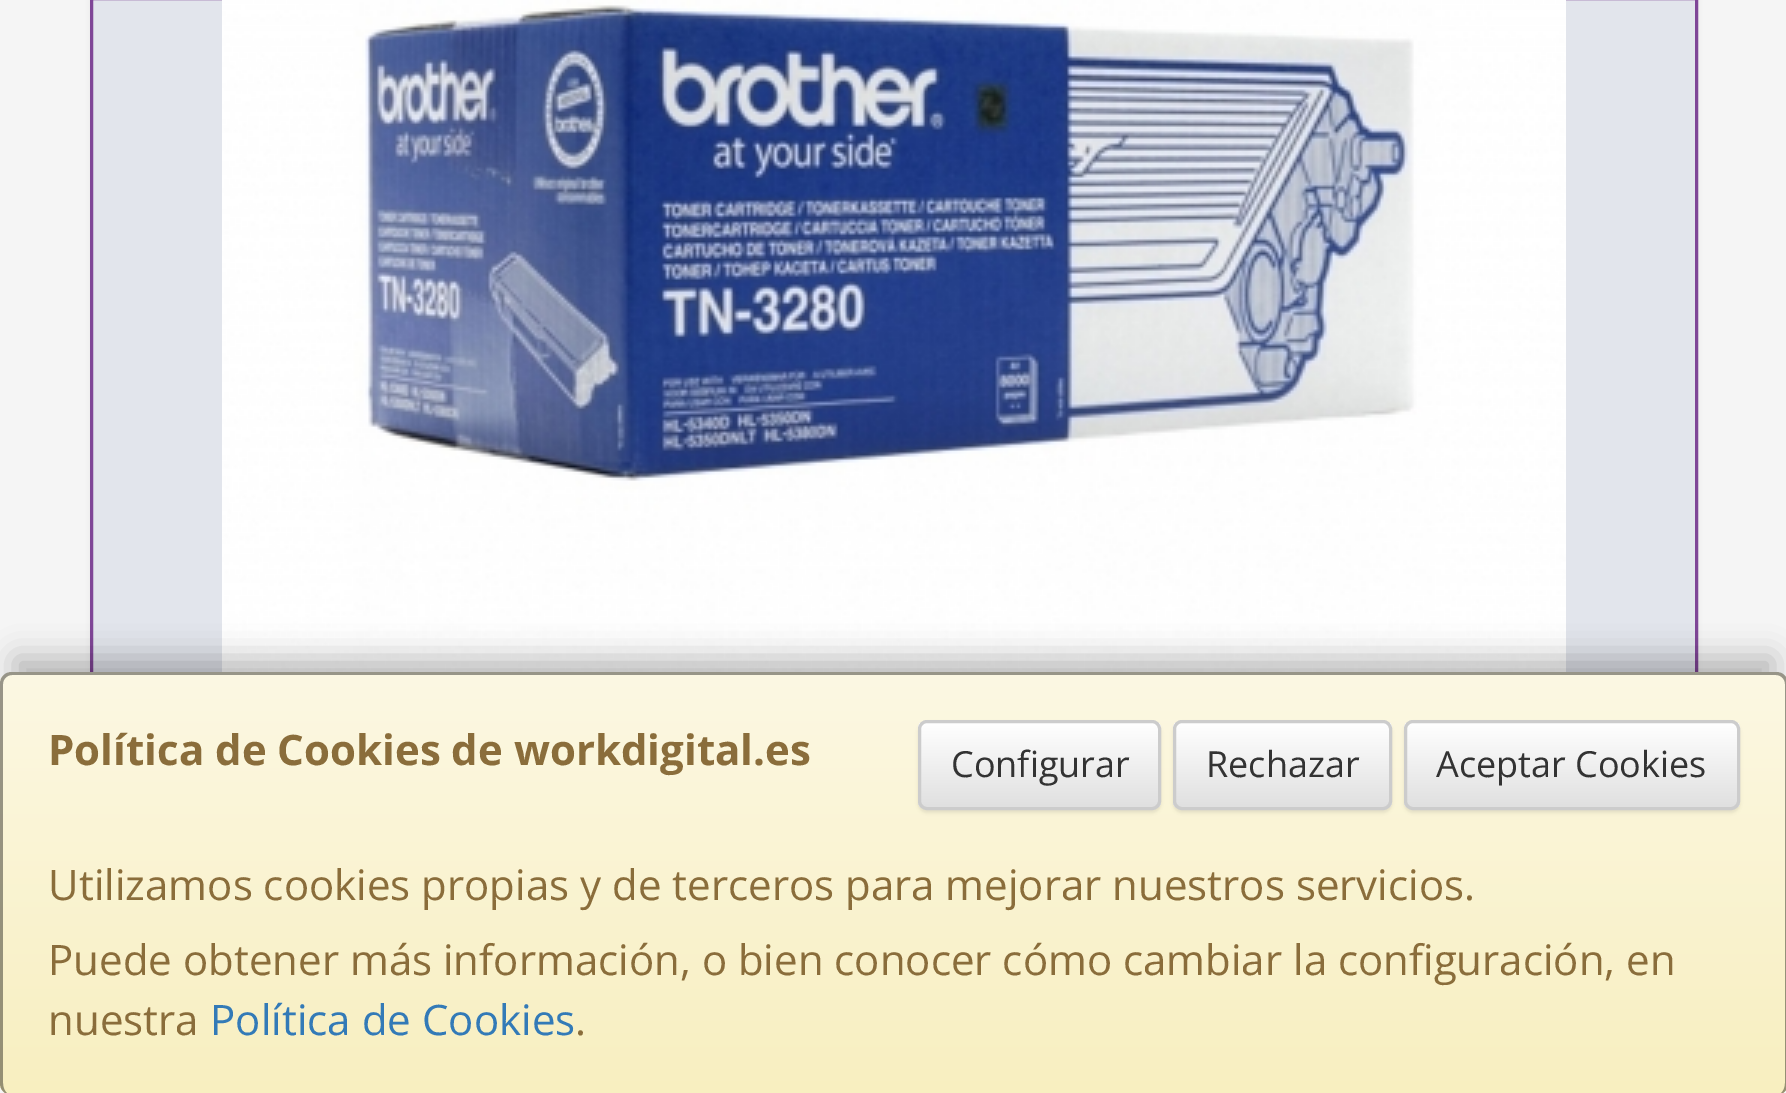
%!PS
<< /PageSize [1786 1093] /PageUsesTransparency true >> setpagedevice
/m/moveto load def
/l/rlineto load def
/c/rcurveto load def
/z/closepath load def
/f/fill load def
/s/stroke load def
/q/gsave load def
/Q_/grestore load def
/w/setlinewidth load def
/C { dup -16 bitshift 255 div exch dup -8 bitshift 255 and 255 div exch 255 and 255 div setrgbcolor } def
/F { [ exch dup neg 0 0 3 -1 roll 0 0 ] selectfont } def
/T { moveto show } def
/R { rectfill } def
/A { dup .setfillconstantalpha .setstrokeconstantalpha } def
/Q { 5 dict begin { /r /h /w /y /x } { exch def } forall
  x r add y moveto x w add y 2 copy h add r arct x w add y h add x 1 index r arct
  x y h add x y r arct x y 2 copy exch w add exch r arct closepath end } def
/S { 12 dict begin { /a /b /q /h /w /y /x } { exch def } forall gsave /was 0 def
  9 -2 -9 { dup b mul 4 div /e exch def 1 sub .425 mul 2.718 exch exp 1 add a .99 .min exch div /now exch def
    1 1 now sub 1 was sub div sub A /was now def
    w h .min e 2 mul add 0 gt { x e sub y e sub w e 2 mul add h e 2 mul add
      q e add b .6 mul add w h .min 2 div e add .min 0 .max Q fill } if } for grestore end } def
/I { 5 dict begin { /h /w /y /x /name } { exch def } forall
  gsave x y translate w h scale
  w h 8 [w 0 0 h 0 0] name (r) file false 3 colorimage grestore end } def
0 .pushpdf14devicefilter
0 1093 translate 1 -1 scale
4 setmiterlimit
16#F5F5F5 C
0 0 1786 1093 R
16#000000 C
90 -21 1608 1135 12 3 .05 S
16#E2E5EC C
93 0 1602 672 R
16#7F4697 C
3 w
91.5 -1.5 1605 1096 rectstroke
(1.rgb) 222 0 1344 672 I
16#000000 C
15 657 1758 393 0 15 .25 S
16#FCF8E3 C
0 672 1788 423 12 Q f
q
0 672 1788 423 12 Q clip newpath
q 0 675 m 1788 0 l 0 408 l 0 6.5 -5.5 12 -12 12 c -1764 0 l -6.5 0 -12 -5.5 -12 -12 c z clip newpath
<< /ShadingType 2 /ColorSpace /DeviceRGB /Coords [894 675 894 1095] /Extend [true true] /Function << /FunctionType 2 /Domain [0 1] /C0 [.988 .973 .89] /C1 [.973 .937 .753] /N 1 >> >> shfill Q_
Q_
0.4 A
16#000000 C
12 672 m 1764 0 l 7 0 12 5 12 12 c 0 399 l 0 7 -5 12 -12 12 c -1764 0 l -7 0 -12 -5 -12 -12 c 0 -399 l 0 -7 5 -12 12 -12 c z 12 675 m 1764 0 l 5 0 9 4 9 9 c 0 399 l 0 7 -4 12 -9 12 c -1764 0 l -5 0 -9 -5 -9 -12 c 0 -399 l 0 -5 4 -9 9 -9 c z eofill
/OpenSans-Bold 42 F
1 A
16#8A6D3B C
(Política de Cookies de workdigital.es) 48 765 T
16#000000 C
918 723 243 90 9 1.5 .07 S
q
918 720 243 90 9 Q clip newpath
q 918 723 m 243 0 l 0 84 l -243 0 l z clip newpath
<< /ShadingType 2 /ColorSpace /DeviceRGB /Coords [1040 723 1040 807] /Extend [true true] /Function << /FunctionType 2 /Domain [0 1] /C0 [1 1 1] /C1 [.878 .878 .878] /N 1 >> >> shfill Q_
Q_
16#CCCCCC C
919.5 721.5 240 87 7.5 Q s
/OpenSans-Regular 36 F
16#333333 C
(Configurar) 951 777 T
16#000000 C
1173 723 219 90 9 1.5 .07 S
q
1173 720 219 90 9 Q clip newpath
q 1173 723 m 219 0 l 0 84 l -219 0 l z clip newpath
<< /ShadingType 2 /ColorSpace /DeviceRGB /Coords [1283 723 1283 807] /Extend [true true] /Function << /FunctionType 2 /Domain [0 1] /C0 [1 1 1] /C1 [.878 .878 .878] /N 1 >> >> shfill Q_
Q_
16#CCCCCC C
1174.5 721.5 216 87 7.5 Q s
16#333333 C
(Rechazar) 1206 777 T
16#000000 C
1404 723 336 90 9 1.5 .07 S
q
1404 720 336 90 9 Q clip newpath
q 1404 723 m 336 0 l 0 84 l -336 0 l z clip newpath
<< /ShadingType 2 /ColorSpace /DeviceRGB /Coords [1572 723 1572 807] /Extend [true true] /Function << /FunctionType 2 /Domain [0 1] /C0 [1 1 1] /C1 [.878 .878 .878] /N 1 >> >> shfill Q_
Q_
16#CCCCCC C
1405.5 721.5 333 87 7.5 Q s
16#333333 C
(Aceptar Cookies) 1436 777 T
/OpenSans-Regular 42 F
16#8A6D3B C
(Utilizamos cookies propias y de terceros para mejorar nuestros servicios.) 48 900 T
(Puede obtener más información, o bien conocer cómo cambiar la configuración, en) 48 975 T
(nuestra) 48 1035 T
16#337AB7 C
(Política de Cookies) 210 1035 T
16#8A6D3B C
(.) 575 1035 T
.poppdf14devicefilter showpage
